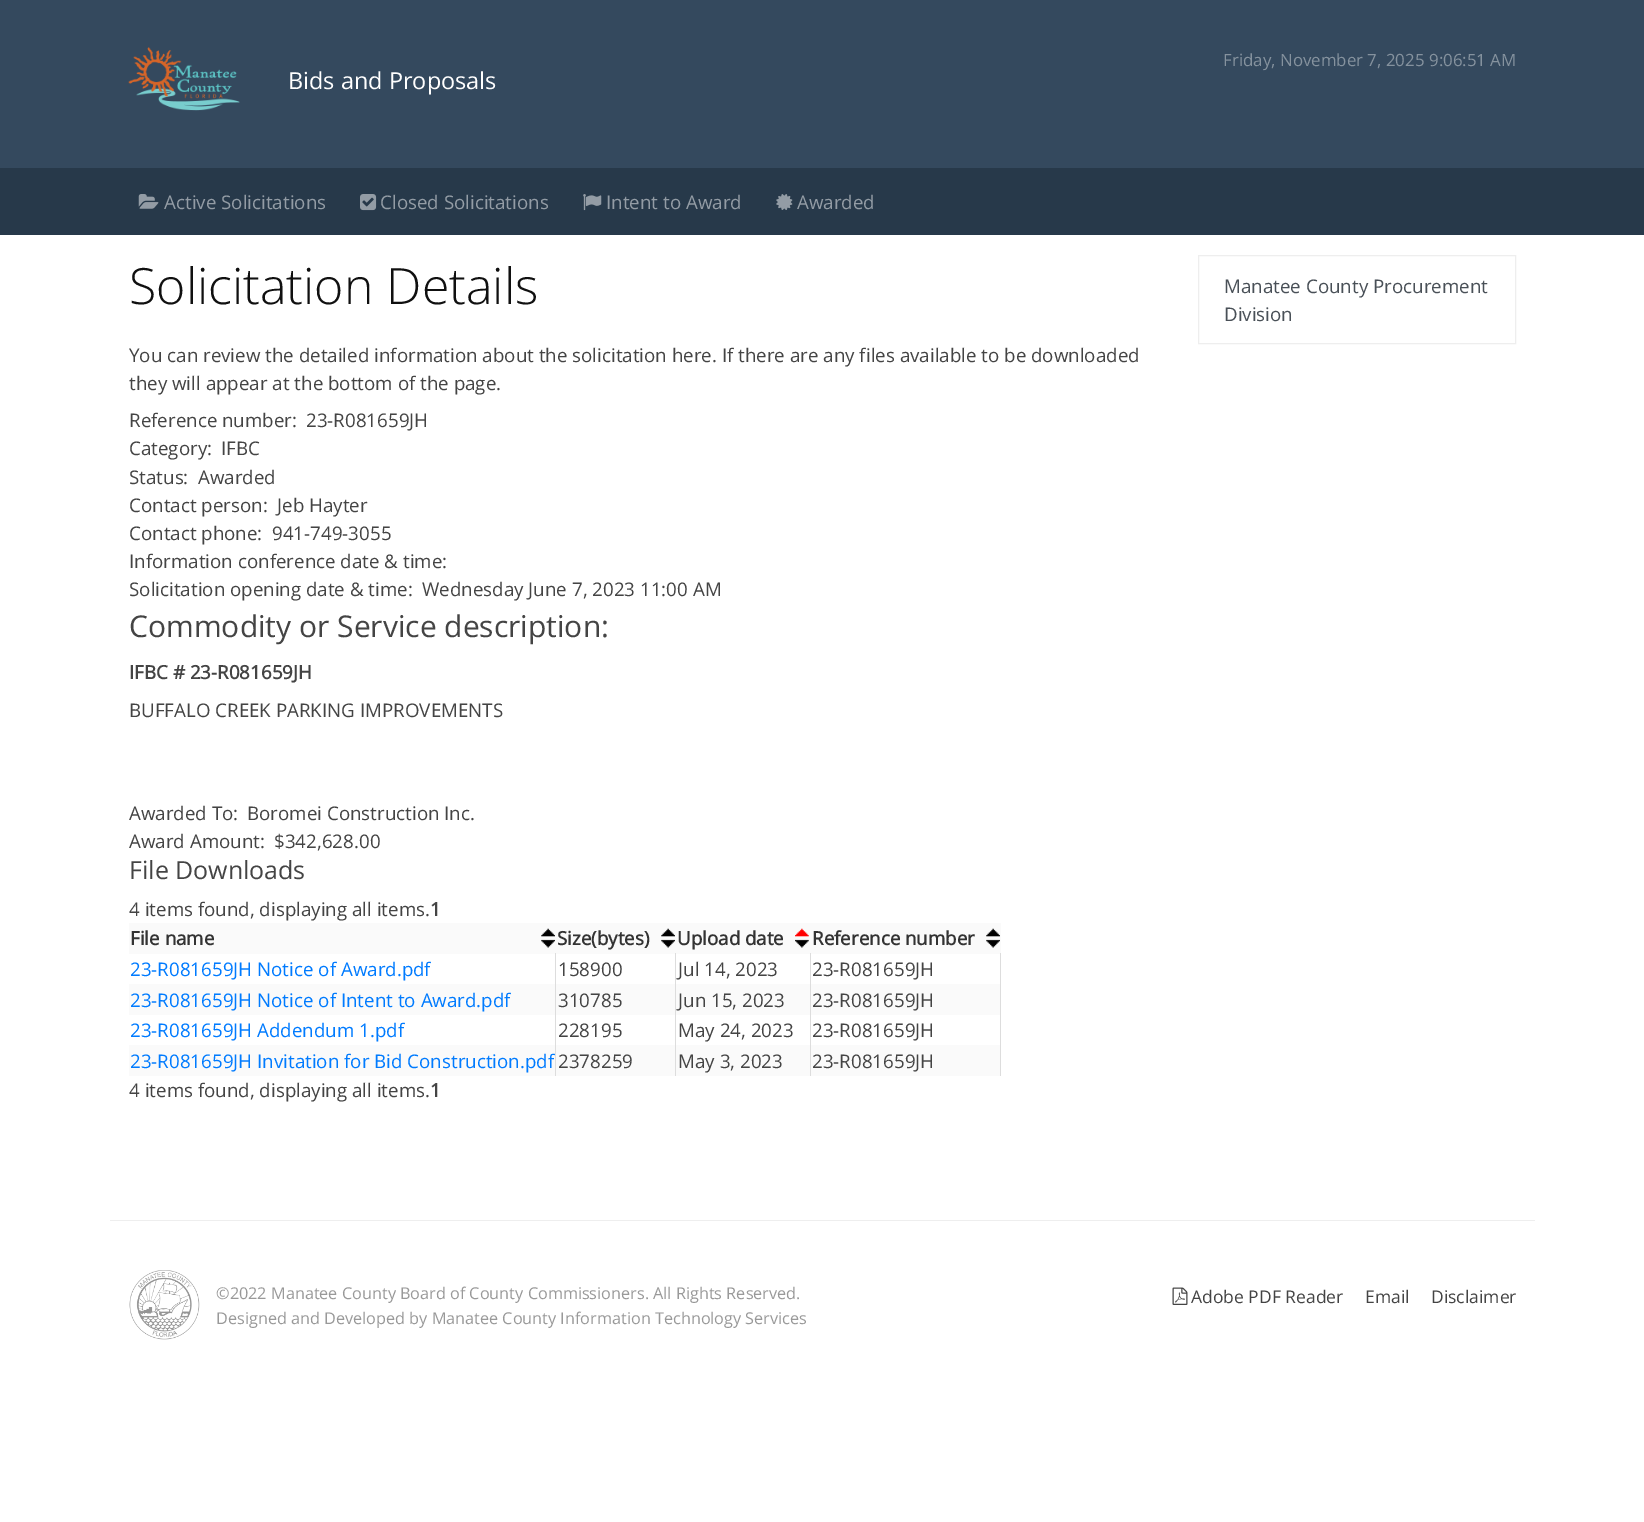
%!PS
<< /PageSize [1644 1522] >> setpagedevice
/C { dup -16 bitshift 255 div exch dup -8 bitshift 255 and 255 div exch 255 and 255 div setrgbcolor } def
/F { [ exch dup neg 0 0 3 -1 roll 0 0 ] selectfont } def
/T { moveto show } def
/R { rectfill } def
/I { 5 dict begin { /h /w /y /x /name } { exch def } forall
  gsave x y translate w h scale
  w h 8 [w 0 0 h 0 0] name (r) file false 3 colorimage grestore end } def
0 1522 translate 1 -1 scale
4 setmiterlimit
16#FFFFFF C
0 0 1644 1522 R
16#34495E C
0 0 1644 168 R
(1.rgb) 128 47 112 64 I
/OpenSans-Regular 16.9 F
16#85929E C
(Friday, November 7, 2025 9:06:51 AM) 1223 66 T
/OpenSans-Regular 23.5 F
16#FFFFFF C
(Bids and Proposals) 288 89 T
16#27394A C
0 168 1644 67 R
(2.rgb) 138 194 21 15 I
/OpenSans-Regular 18.75 F
16#939CA5 C
(Active Solicitations) 164 209 T
(3.rgb) 360 194 17 17 I
(Closed Solicitations) 380 209 T
(4.rgb) 583 194 19 17 I
(Intent to Award) 606 209 T
(5.rgb) 776 194 17 16 I
(Awarded) 797 209 T
/OpenSans-Light 50 F
16#101010 C
(Solicitation Details) 129 304 T
/OpenSans-Regular 18.75 F
16#444444 C
(You can review the detailed information about the solicitation here. If there are any files available to be downloaded) 129 362 T
(they will appear at the bottom of the page.) 129 390 T
(Reference number:) 129 427 T
(23-R081659JH) 306 427 T
(Category:) 129 455 T
(IFBC) 221 455 T
(Status:) 129 484 T
(Awarded) 198 484 T
(Contact person:) 129 512 T
(Jeb Hayter) 277 512 T
(Contact phone:) 129 540 T
(941-749-3055) 272 540 T
(Information conference date & time:) 129 568 T
(Solicitation opening date & time:) 129 596 T
(Wednesday June 7, 2023 11:00 AM) 422 596 T
/OpenSans-Regular 30 F
(Commodity or Service description:) 129 637 T
/OpenSans-Bold 18.75 F
(IFBC # 23-R081659JH) 129 679 T
/OpenSans-Regular 18.75 F
(BUFFALO CREEK PARKING IMPROVEMENTS) 129 717 T
(Awarded To:) 129 820 T
(Boromei Construction Inc.) 247 820 T
(Award Amount:) 129 848 T
($342,628.00) 274 848 T
/OpenSans-Regular 25 F
(File Downloads) 129 879 T
/OpenSans-Regular 18.75 F
(4 items found, displaying all items.) 129 916 T
/OpenSans-Bold 18.75 F
(1) 430 916 T
16#FAFAFA C
129 923 872 31 R
(6.rgb) 541 928 14 20 I
16#333333 C
(File name) 130 945 T
(6.rgb) 661 928 14 20 I
(Size\(bytes\)) 557 945 T
(7.rgb) 795 928 14 20 I
(Upload date) 677 945 T
(6.rgb) 986 928 14 20 I
(Reference number) 812 945 T
/OpenSans-Regular 18.75 F
16#007BFF C
(23-R081659JH Notice of Award.pdf) 130 976 T
16#444444 C
(158900) 558 976 T
(Jul 14, 2023) 678 976 T
(23-R081659JH) 812 976 T
16#FAFAFA C
129 984 871 31 R
16#007BFF C
(23-R081659JH Notice of Intent to Award.pdf) 130 1007 T
16#444444 C
(310785) 558 1007 T
(Jun 15, 2023) 678 1007 T
(23-R081659JH) 812 1007 T
16#007BFF C
(23-R081659JH Addendum 1.pdf) 130 1037 T
16#444444 C
(228195) 558 1037 T
(May 24, 2023) 678 1037 T
(23-R081659JH) 812 1037 T
16#FAFAFA C
129 1045 871 31 R
16#DDDDDD C
555 953 1 123 R
16#007BFF C
(23-R081659JH Invitation for Bid Construction.pdf) 130 1068 T
16#DDDDDD C
675 953 1 123 R
16#444444 C
(2378259) 558 1068 T
16#DDDDDD C
810 953 1 123 R
16#444444 C
(May 3, 2023) 678 1068 T
16#DDDDDD C
1000 953 1 123 R
16#444444 C
(23-R081659JH) 812 1068 T
(4 items found, displaying all items.) 129 1097 T
/OpenSans-Bold 18.75 F
(1) 430 1097 T
16#EEEEEE C
1198.5 255.5 317 88 rectstroke
/OpenSans-Regular 18.75 F
16#495057 C
(Manatee County Procurement) 1224 293 T
(Division) 1224 321 T
16#EEEEEE C
110 1220 1425 1 R
(8.rgb) 129 1270 71 70 I
/OpenSans-Regular 16.25 F
16#999999 C
(©2022 Manatee County Board of County Commissioners. All Rights Reserved.) 216 1299 T
(Designed and Developed by Manatee County Information Technology Services) 216 1324 T
(9.rgb) 1172 1287 16 18 I
/OpenSans-Regular 17.5 F
16#444444 C
(Adobe PDF Reader) 1191 1303 T
(Email) 1365 1303 T
(Disclaimer) 1431 1303 T
showpage
